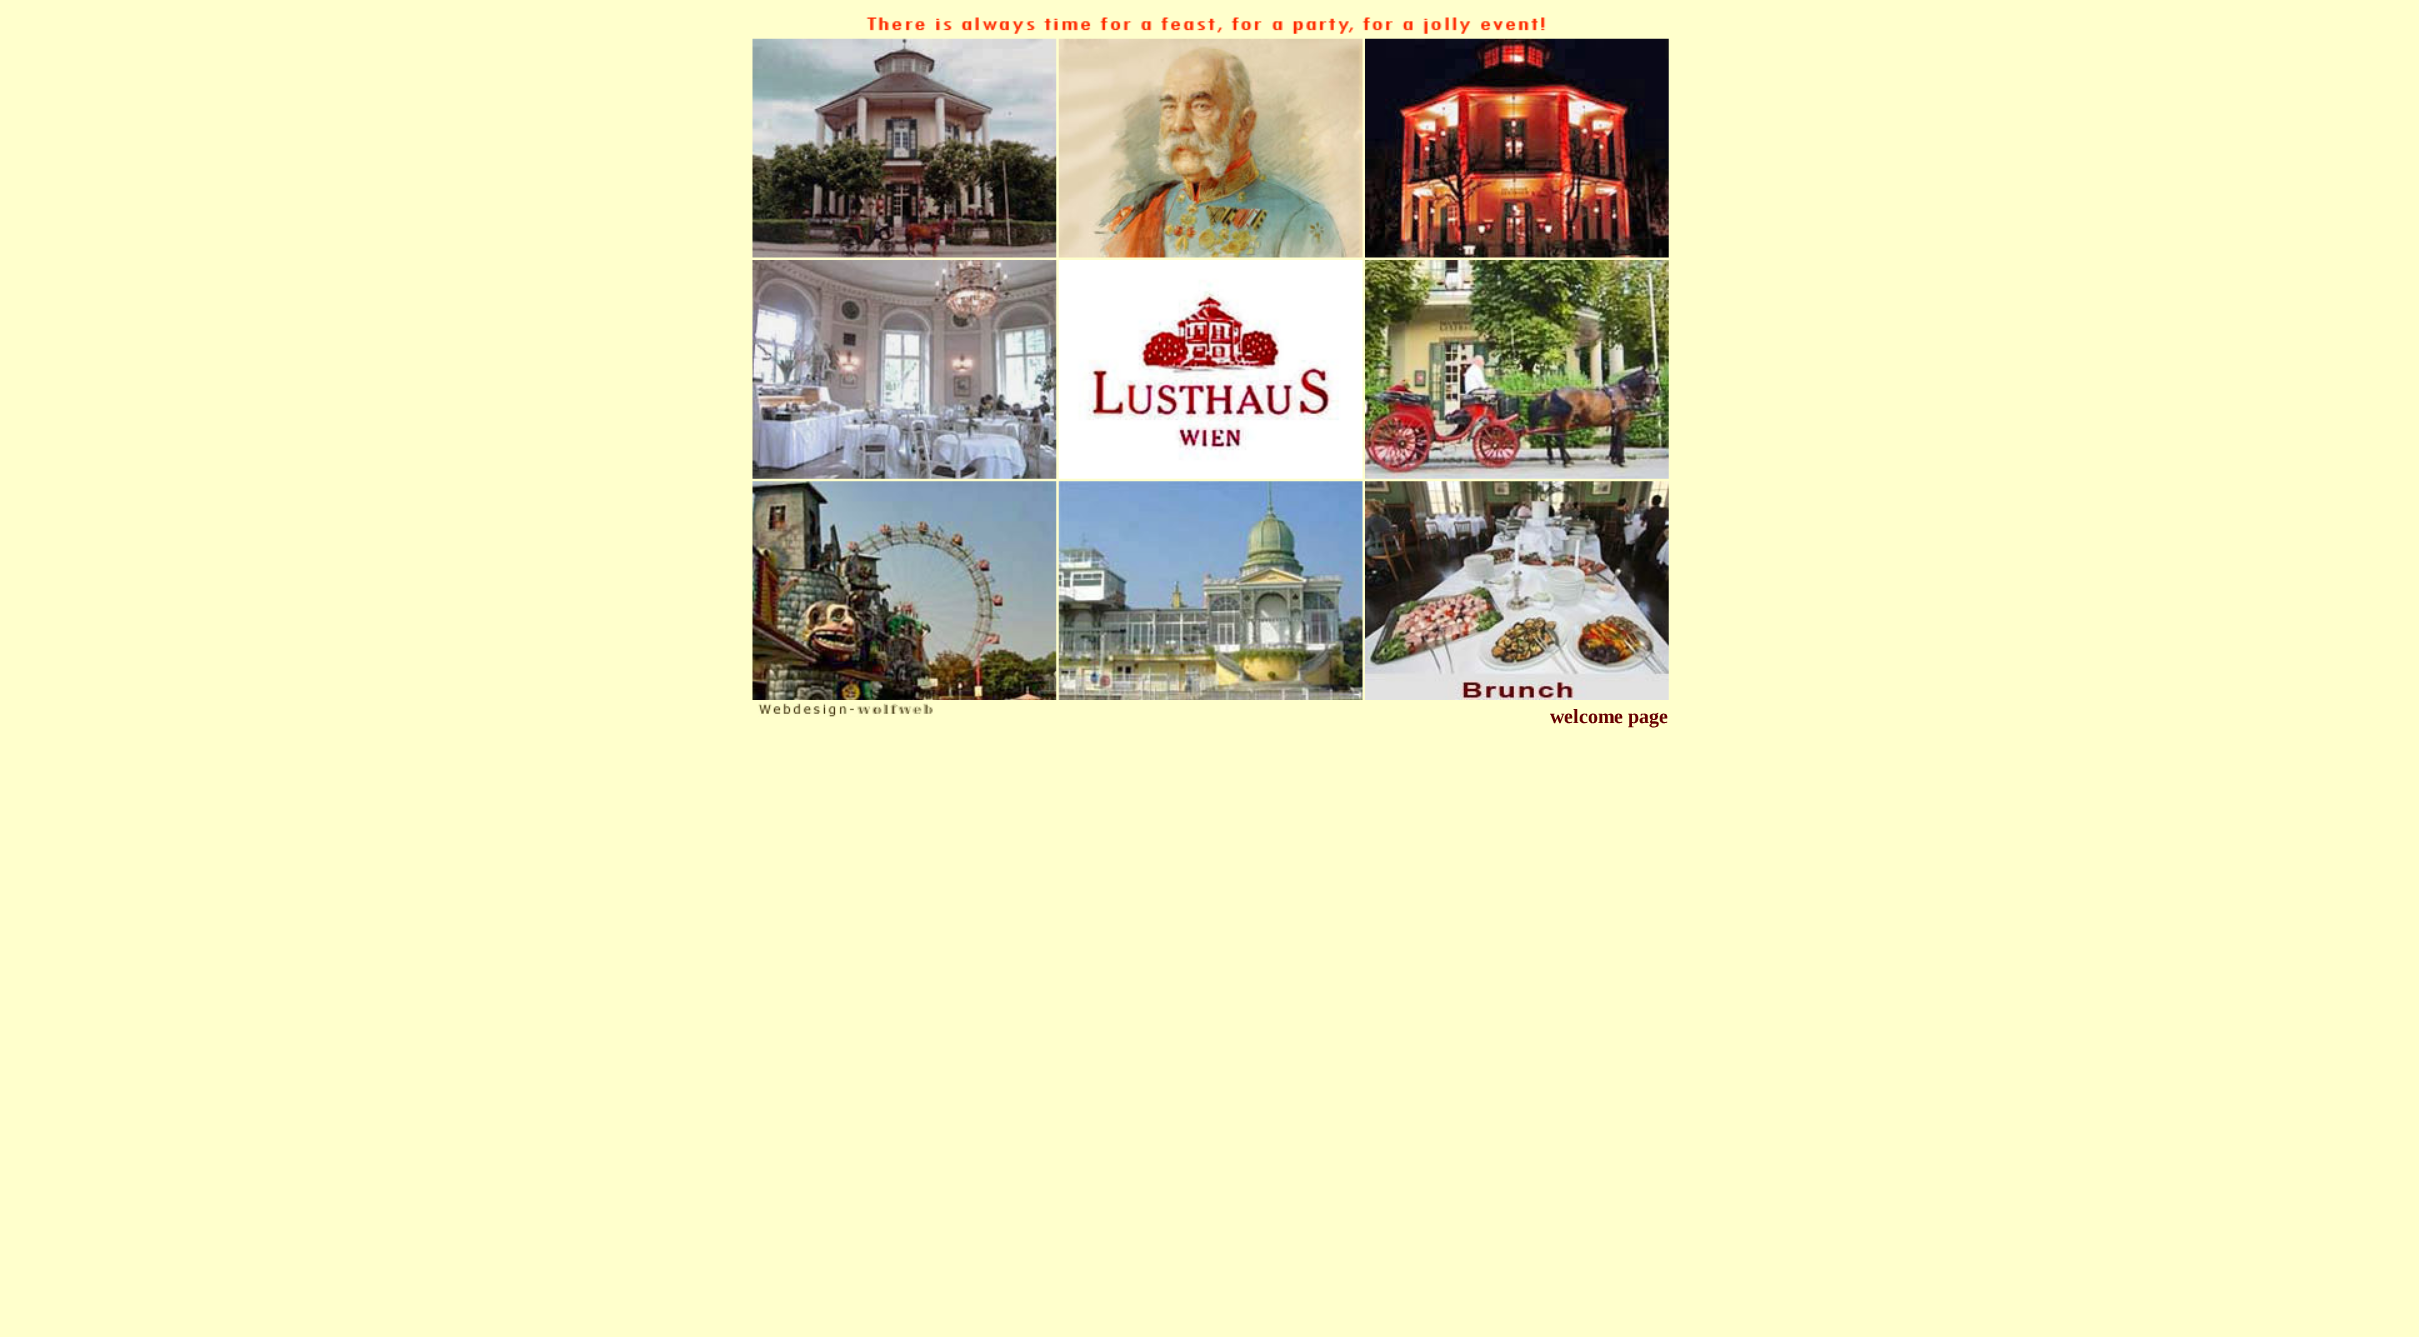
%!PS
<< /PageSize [2419 1337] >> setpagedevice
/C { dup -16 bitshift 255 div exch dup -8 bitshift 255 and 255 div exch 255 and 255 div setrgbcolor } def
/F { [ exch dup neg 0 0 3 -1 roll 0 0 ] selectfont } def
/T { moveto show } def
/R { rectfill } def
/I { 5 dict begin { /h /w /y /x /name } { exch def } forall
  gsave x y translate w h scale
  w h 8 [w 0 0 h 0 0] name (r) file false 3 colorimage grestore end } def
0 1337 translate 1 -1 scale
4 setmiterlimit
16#FFFFCC C
0 0 2419 1337 R
(1.rgb) 866 17 680 17 I
(2.rgb) 752 38 305 220 I
(3.rgb) 1058 38 305 220 I
(4.rgb) 1365 38 304 220 I
(5.rgb) 752 260 305 219 I
(6.rgb) 1058 260 305 219 I
(7.rgb) 1365 260 304 219 I
(8.rgb) 752 481 305 219 I
(9.rgb) 1058 481 305 219 I
(10.rgb) 1365 481 304 219 I
(11.rgb) 758 703 175 14 I
/LiberationSerif-Bold 20 F
16#660000 C
(welcome page) 1550 723 T
showpage
